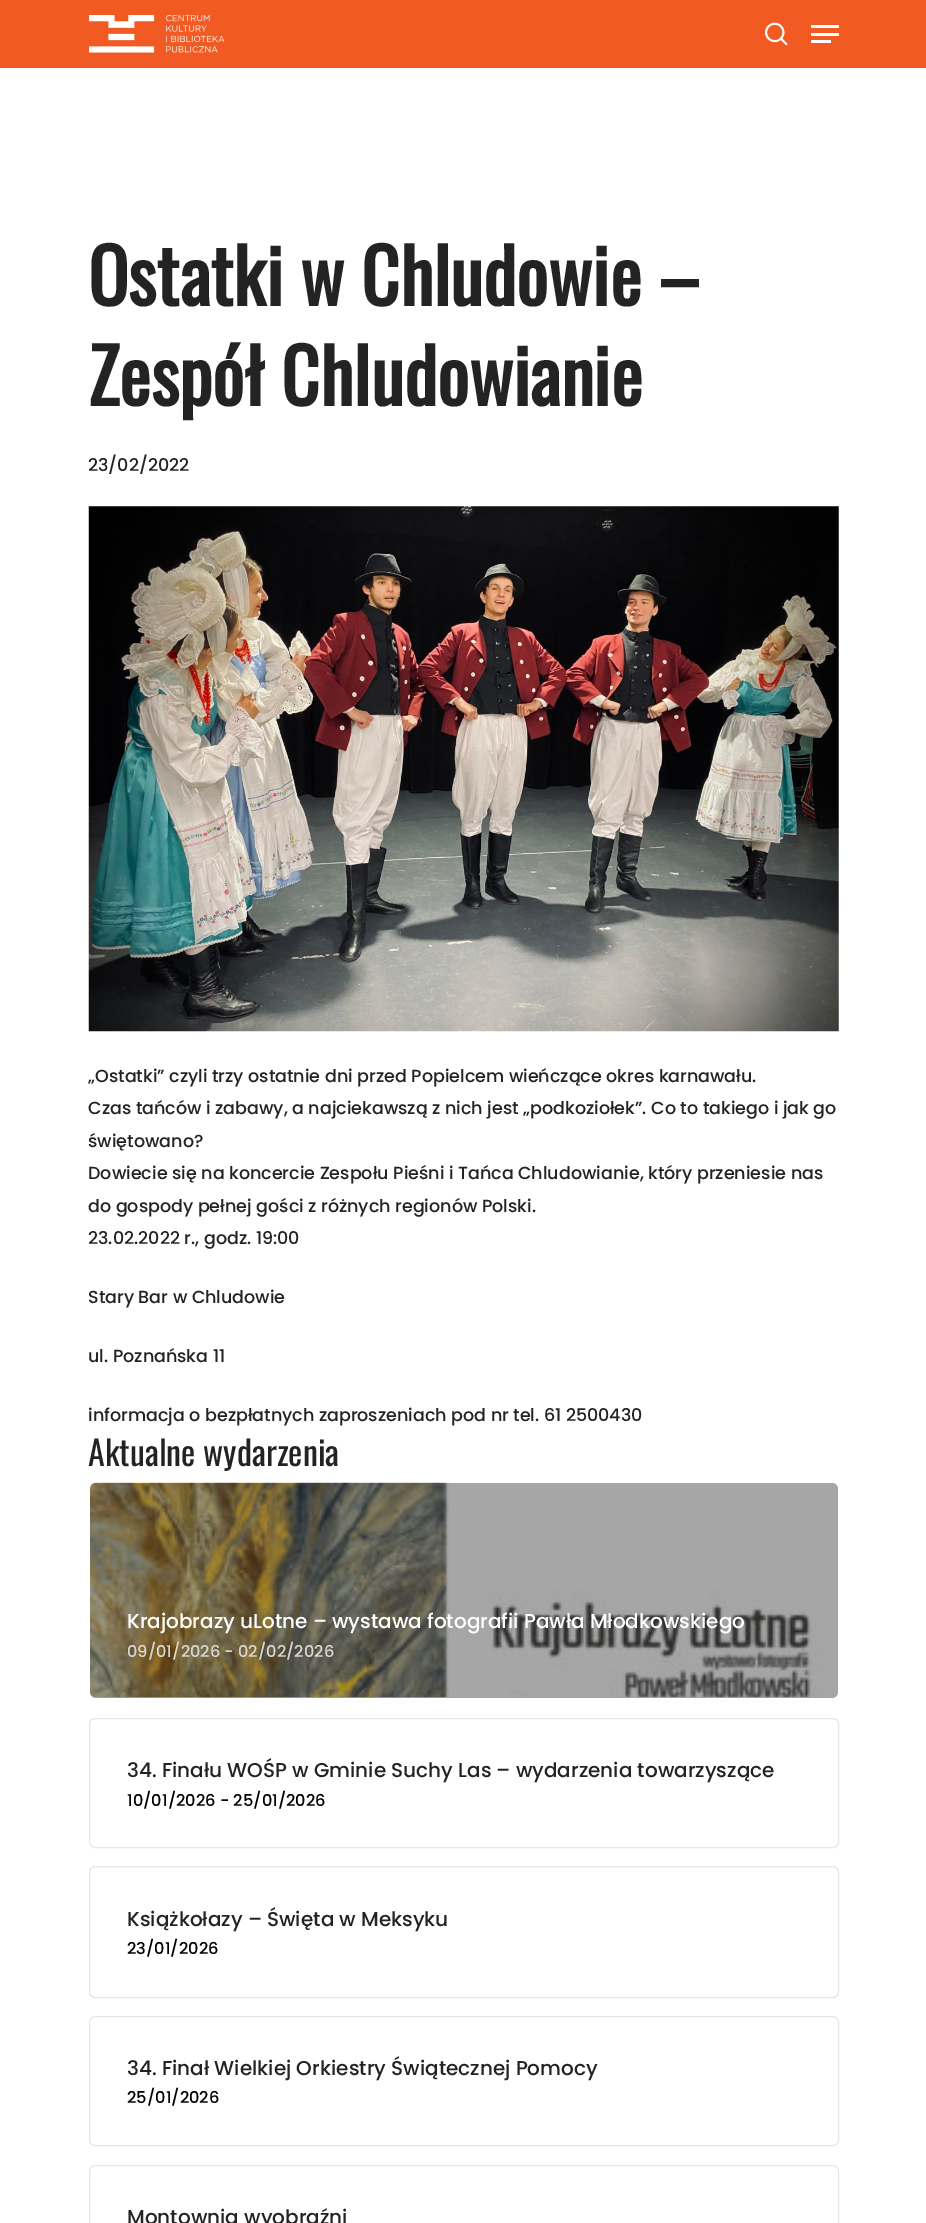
%!PS
<< /PageSize [926 2223] /PageUsesTransparency true >> setpagedevice
/f/fill load def
/s/stroke load def
/C { dup -16 bitshift 255 div exch dup -8 bitshift 255 and 255 div exch 255 and 255 div setrgbcolor } def
/F { [ exch dup neg 0 0 3 -1 roll 0 0 ] selectfont } def
/T { moveto show } def
/R { rectfill } def
/A { dup .setfillconstantalpha .setstrokeconstantalpha } def
/Q { 5 dict begin { /r /h /w /y /x } { exch def } forall
  x r add y moveto x w add y 2 copy h add r arct x w add y h add x 1 index r arct
  x y h add x y r arct x y 2 copy exch w add exch r arct closepath end } def
/I { 5 dict begin { /h /w /y /x /name } { exch def } forall
  gsave x y translate w h scale
  w h 8 [w 0 0 h 0 0] name (r) file false 3 colorimage grestore end } def
0 .pushpdf14devicefilter
0 2223 translate 1 -1 scale
4 setmiterlimit
16#FFFFFF C
0 0 926 2223 R
16#F15A22 C
0 0 926 68 R
(1.rgb) 89 15 135 38 I
(2.rgb) 765 22 23 24 I
16#FFFFFF C
811 25 28 3 R
811 40 20 3 R
811 33 28 3 R
/Oswald-Bold 75 F
16#232323 C
(Ostatki w Chludowie –) 88 306 T
(Zespół Chludowianie) 88 406 T
/Poppins-Medium 17.5 F
(23/02/2022) 88 471 T
(3.rgb) 88 506 751 526 I
(„Ostatki” czyli trzy ostatnie dni przed Popielcem wieńczące okres karnawału.) 88 1082 T
(Czas tańców i zabawy, a najciekawszą z nich jest „podkoziołek”. Co to takiego i jak go) 88 1114 T
(świętowano?) 88 1147 T
(Dowiecie się na koncercie Zespołu Pieśni i Tańca Chludowianie, który przeniesie nas) 88 1179 T
(do gospody pełnej gości z różnych regionów Polski.) 88 1212 T
(23.02.2022 r., godz. 19:00) 88 1244 T
(Stary Bar w Chludowie) 88 1303 T
(ul. Poznańska 11) 88 1362 T
(informacja o bezpłatnych zaproszeniach pod nr tel. 61 2500430) 88 1421 T
/Oswald-Regular 34 F
(Aktualne wydarzenia) 88 1466 T
(4.rgb) 90 1482 734 216 I
0.35 A
16#000000 C
90 1483 748 215 6 Q f
/Poppins-Medium 20 F
1 A
16#FFFFFF C
(Krajobrazy uLotne – wystawa fotografii Pawła Młodkowskiego) 127 1628 T
/Poppins-Medium 16.25 F
16#D9D6CF C
(09/01/2026 - 02/02/2026) 127 1657 T
16#E6E6E6 C
89.5 1718.5 749 129 5.5 Q s
/Poppins-Medium 20 F
16#232323 C
(34. Finału WOŚP w Gminie Suchy Las – wydarzenia towarzyszące) 127 1777 T
/Poppins-Medium 16.25 F
16#000000 C
(10/01/2026 - 25/01/2026) 127 1806 T
16#E6E6E6 C
89.5 1866.5 749 131 5.5 Q s
/Poppins-Medium 20 F
16#232323 C
(Książkołazy – Święta w Meksyku) 127 1926 T
/Poppins-Medium 16.25 F
16#000000 C
(23/01/2026) 127 1954 T
16#E6E6E6 C
89.5 2016.5 749 129 5.5 Q s
/Poppins-Medium 20 F
16#232323 C
(34. Finał Wielkiej Orkiestry Świątecznej Pomocy) 127 2075 T
/Poppins-Medium 16.25 F
16#000000 C
(25/01/2026) 127 2103 T
16#E6E6E6 C
89.5 2165.5 749 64 5.5 Q s
/Poppins-Medium 20 F
16#232323 C
(Montownia wyobraźni) 127 2224 T
.poppdf14devicefilter showpage
